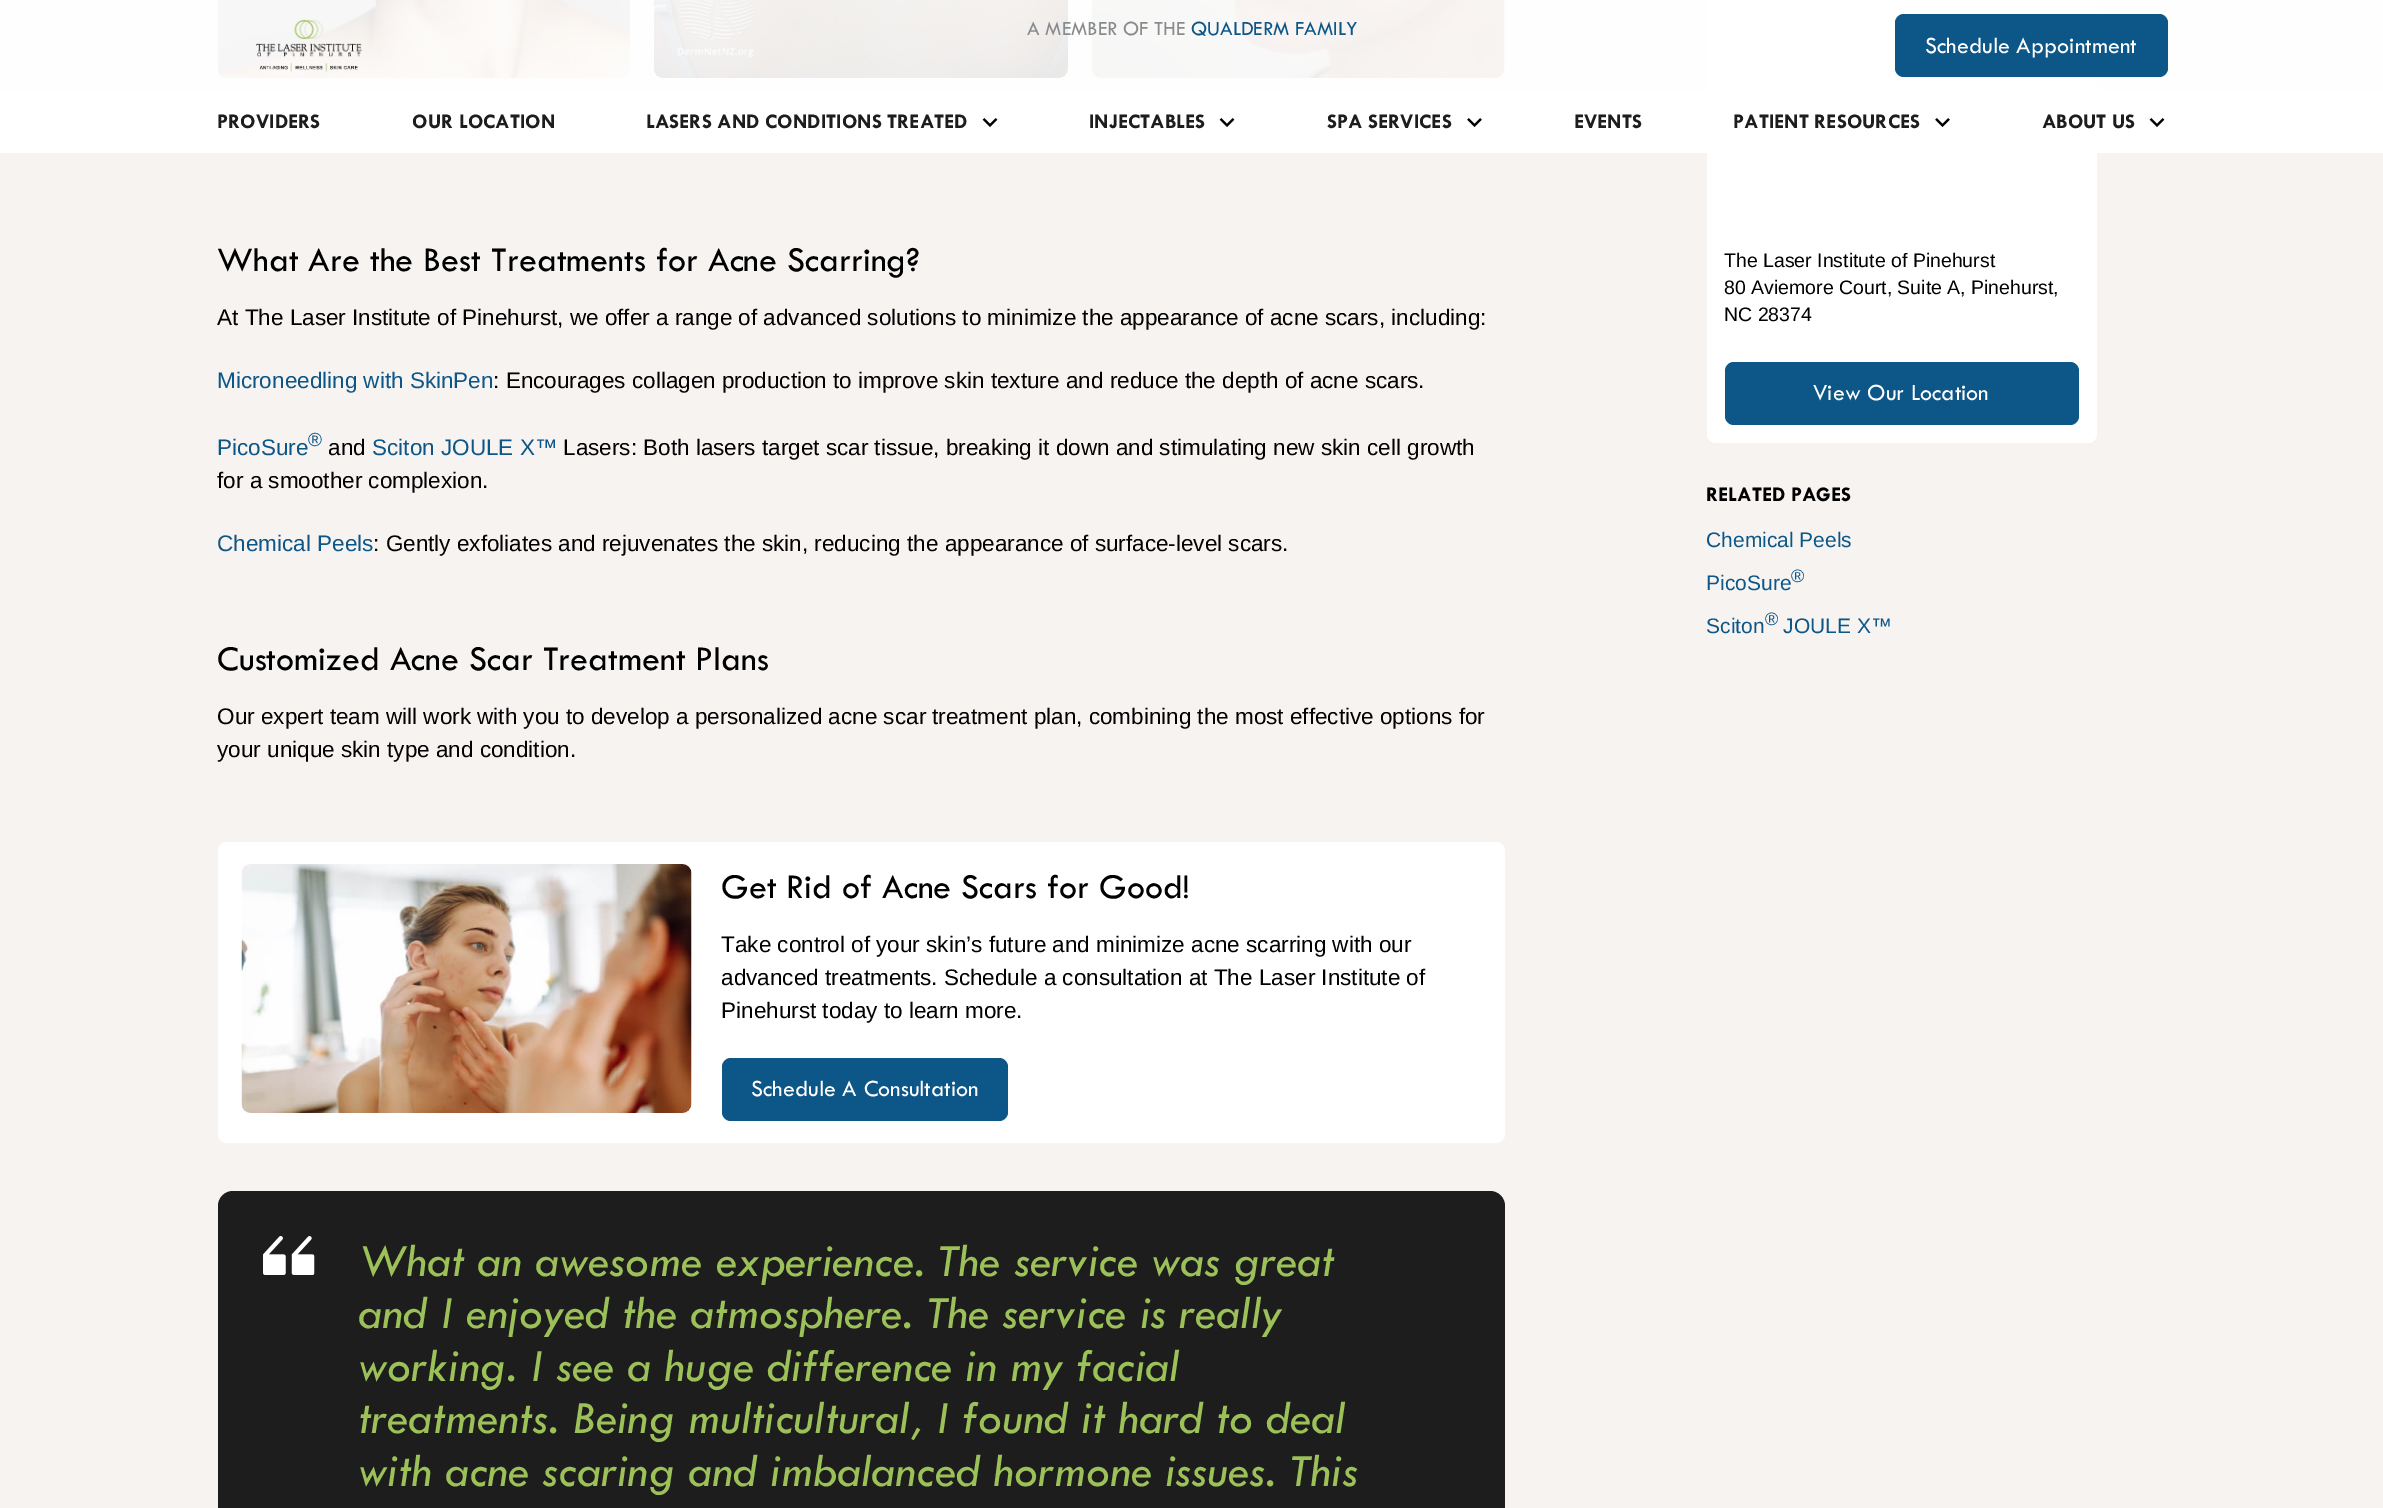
%!PS
<< /PageSize [2383 1508] >> setpagedevice
/f/fill load def
/C { dup -16 bitshift 255 div exch dup -8 bitshift 255 and 255 div exch 255 and 255 div setrgbcolor } def
/F { [ exch dup neg 0 0 3 -1 roll 0 0 ] selectfont } def
/T { moveto show } def
/R { rectfill } def
/Q { 5 dict begin { /r /h /w /y /x } { exch def } forall
  x r add y moveto x w add y 2 copy h add r arct x w add y h add x 1 index r arct
  x y h add x y r arct x y 2 copy exch w add exch r arct closepath end } def
/I { 5 dict begin { /h /w /y /x /name } { exch def } forall
  gsave x y translate w h scale
  w h 8 [w 0 0 h 0 0] name (r) file false 3 colorimage grestore end } def
0 1508 translate 1 -1 scale
4 setmiterlimit
16#F6F3F1 C
0 0 2383 1508 R
16#FEFEFE C
0 0 2383 90 R
(4.rgb) 217 0 413 78 I
(1.rgb) 256 19 106 53 I
(5.rgb) 654 0 414 78 I
(6.rgb) 1092 0 413 78 I
/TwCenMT-Regular 21 F
16#888B8D C
(A MEMBER OF THE) 1027 35 T
16#0C5688 C
(QUALDERM FAMILY) 1191 35 T
16#FFFFFF C
1707 -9 390 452 9 Q f
16#0C5688 C
1895 14 273 63 9 Q f
/TwCenMT-Regular 24 F
16#FFFFFF C
(Schedule Appointment) 1925 53 T
0 90 2383 63 R
/TwCenMT-Bold 21 F
16#1D1D1D C
(PROVIDERS) 217 128 T
(OUR LOCATION) 412 128 T
(LASERS AND CONDITIONS TREATED) 646 128 T
(2.rgb) 982 118 16 9 I
(INJECTABLES) 1089 128 T
(2.rgb) 1219 118 16 9 I
(SPA SERVICES) 1327 128 T
(3.rgb) 1467 118 15 9 I
(EVENTS) 1574 128 T
(PATIENT RESOURCES) 1733 128 T
(3.rgb) 1935 118 15 9 I
(ABOUT US) 2042 128 T
(2.rgb) 2149 118 16 9 I
/TwCenMT-Regular 36 F
16#000000 C
(What Are the Best Treatments for Acne Scarring?) 217 271 T
/LiberationSans-Regular 22.5 F
(At The Laser Institute of Pinehurst, we offer a range of advanced solutions to minimize the appearance of acne scars, including:) 217 325 T
16#0C5688 C
(Microneedling with SkinPen) 217 388 T
16#000000 C
(: Encourages collagen production to improve skin texture and reduce the depth of acne scars.) 493 388 T
16#0C5688 C
(PicoSure) 217 455 T
/LiberationSans-Regular 19 F
(®) 308 446 T
/LiberationSans-Regular 22.5 F
16#000000 C
(and) 328 455 T
16#0C5688 C
(Sciton JOULE X™) 372 455 T
16#000000 C
(Lasers: Both lasers target scar tissue, breaking it down and stimulating new skin cell growth) 563 455 T
(for a smoother complexion.) 217 488 T
16#0C5688 C
(Chemical Peels) 217 551 T
16#000000 C
(: Gently exfoliates and rejuvenates the skin, reducing the appearance of surface-level scars.) 373 551 T
/TwCenMT-Regular 36 F
(Customized Acne Scar Treatment Plans) 217 670 T
/LiberationSans-Regular 22.5 F
(Our expert team will work with you to develop a personalized acne scar treatment plan, combining the most effective options for) 217 724 T
(your unique skin type and condition.) 217 757 T
16#FFFFFF C
218 842 1287 301 9 Q f
(7.rgb) 241 864 451 249 I
/TwCenMT-Regular 36 F
16#000000 C
(Get Rid of Acne Scars for Good!) 721 898 T
/LiberationSans-Regular 22.5 F
(Take control of your skin’s future and minimize acne scarring with our) 721 952 T
(advanced treatments. Schedule a consultation at The Laser Institute of) 721 985 T
(Pinehurst today to learn more.) 721 1018 T
16#0C5688 C
722 1058 286 63 9 Q f
/TwCenMT-Regular 24 F
16#FFFFFF C
(Schedule A Consultation) 751 1096 T
16#1D1D1D C
218 1191 1287 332 15 Q f
(8.rgb) 263 1236 52 39 I
/TwCenMT-Italic 48 F
16#9BC158 C
(What an awesome experience. The service was great) 358 1276 T
(and I enjoyed the atmosphere. The service is really) 358 1328 T
(working. I see a huge difference in my facial) 358 1381 T
(treatments. Being multicultural, I found it hard to deal) 358 1433 T
(with acne scaring and imbalanced hormone issues. This) 358 1486 T
/LiberationSans-Regular 19.5 F
16#000000 C
(The Laser Institute of Pinehurst) 1724 267 T
(80 Aviemore Court, Suite A, Pinehurst,) 1724 294 T
(NC 28374) 1724 321 T
16#0C5688 C
1725 362 354 63 9 Q f
/TwCenMT-Regular 24 F
16#FFFFFF C
(View Our Location) 1813 400 T
/TwCenMT-Bold 21 F
16#000000 C
(RELATED PAGES) 1706 501 T
/LiberationSans-Regular 21 F
16#0C5688 C
(Chemical Peels) 1706 547 T
(PicoSure) 1706 590 T
/LiberationSans-Regular 18 F
(®) 1791 582 T
/LiberationSans-Regular 21 F
(Sciton) 1706 633 T
/LiberationSans-Regular 18 F
(®) 1765 625 T
/LiberationSans-Regular 21 F
(JOULE X™) 1783 633 T
showpage
